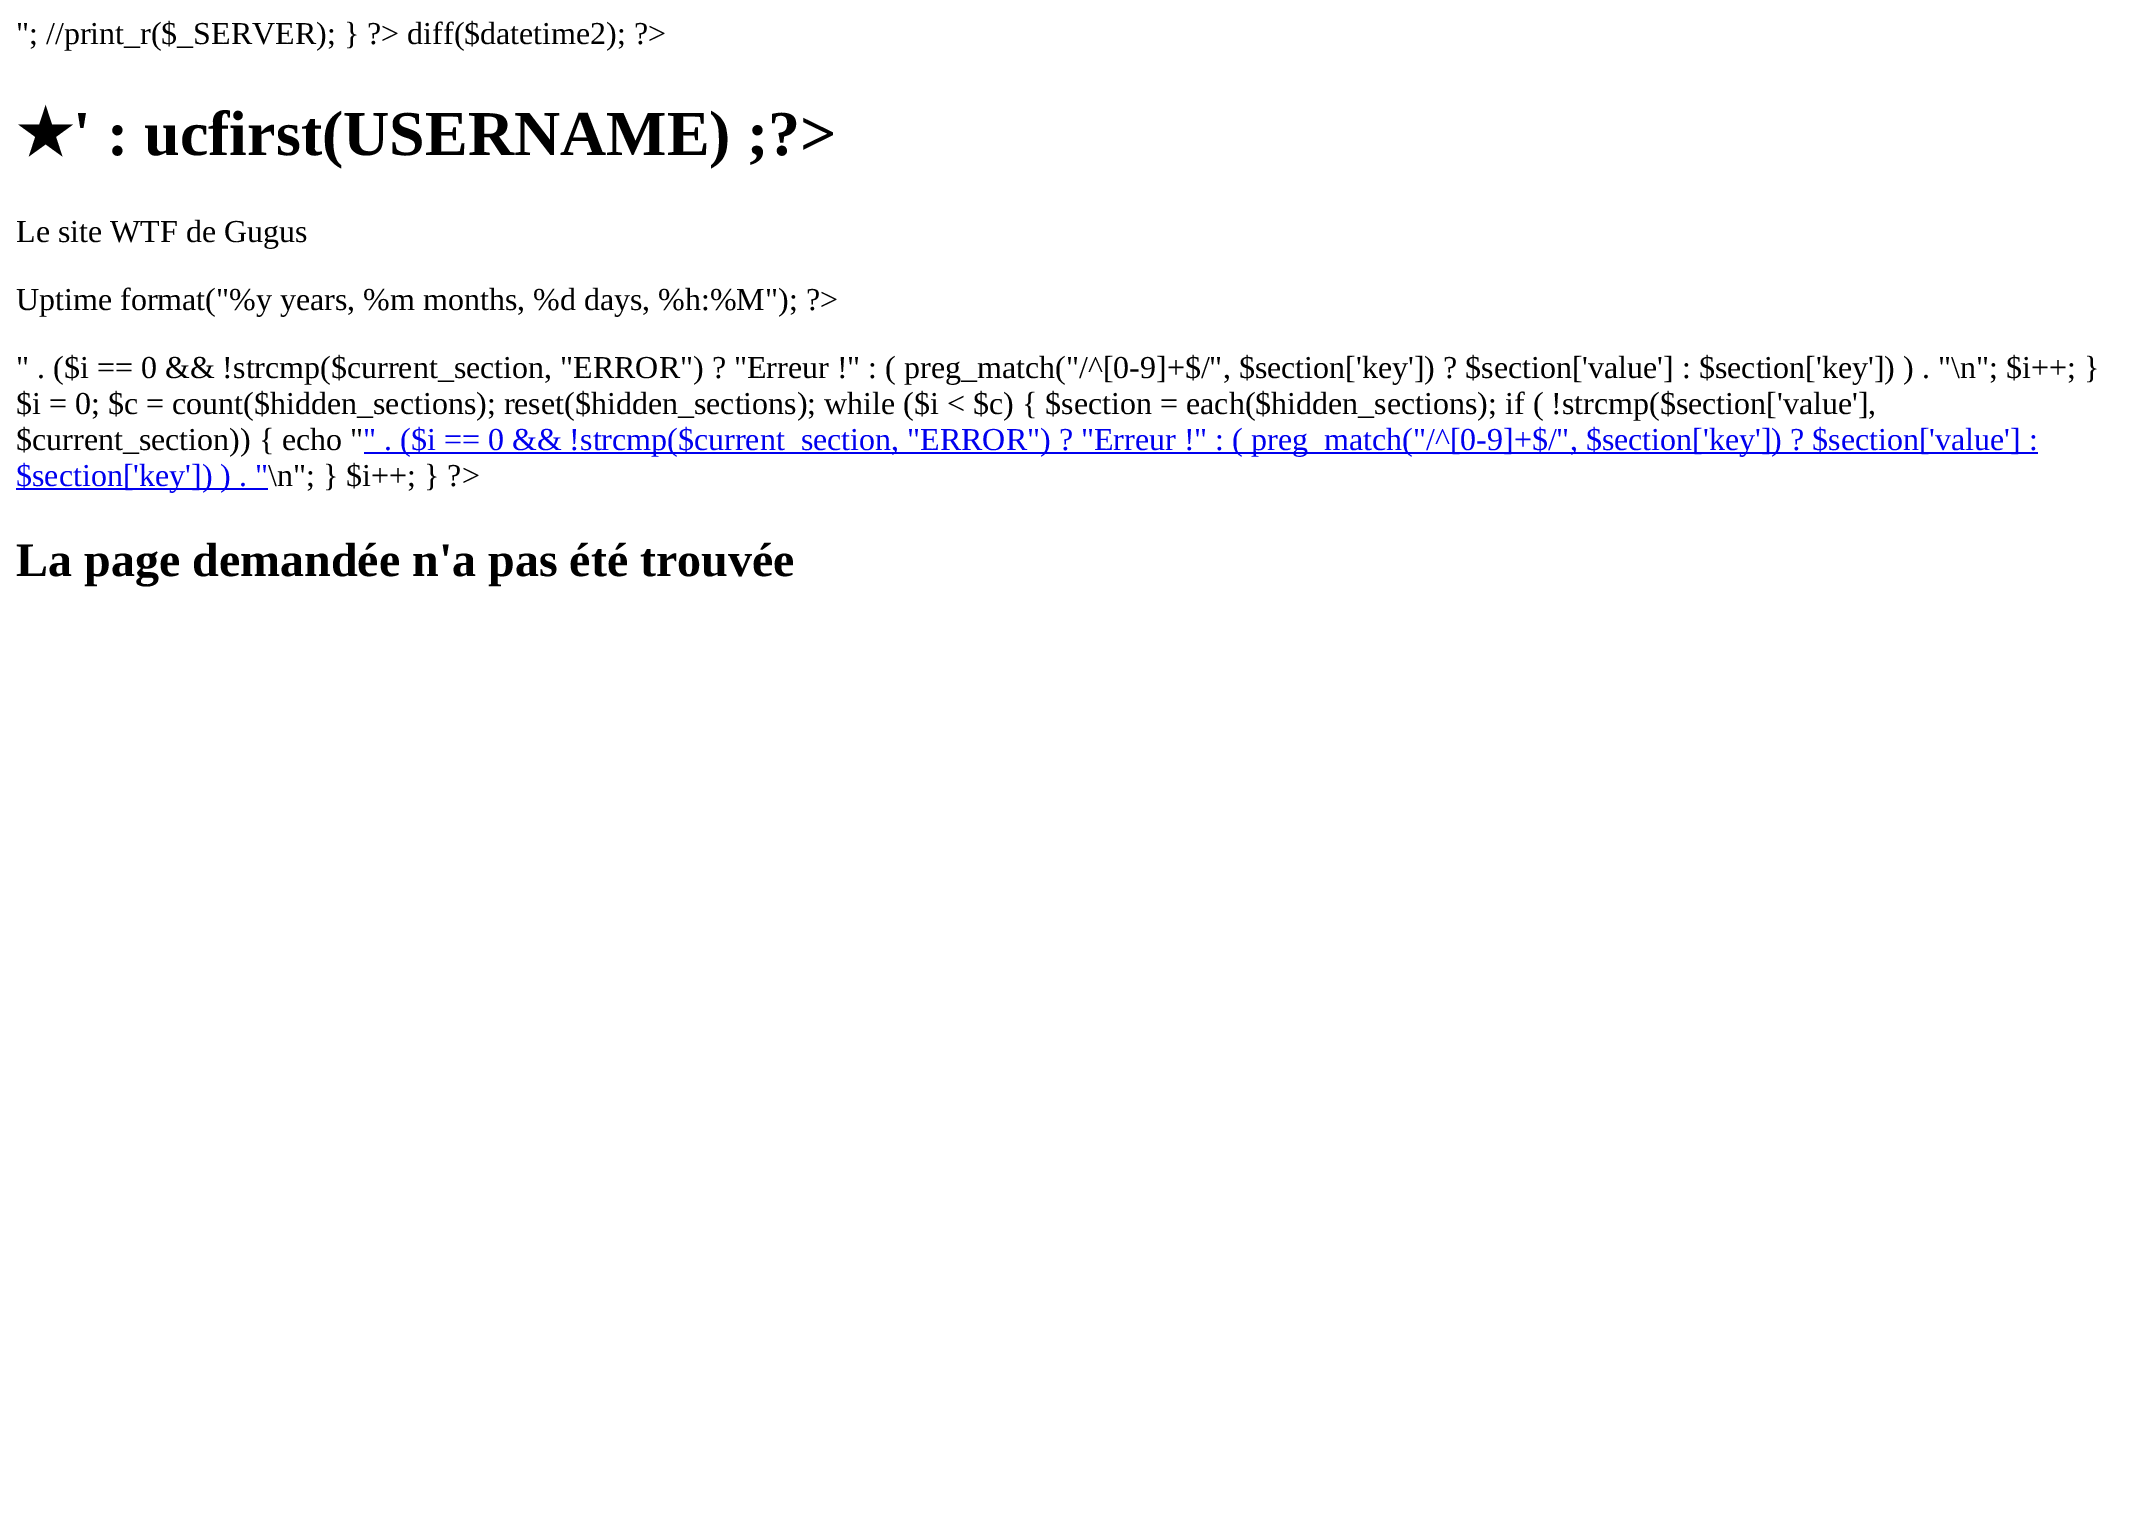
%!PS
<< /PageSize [2129 1537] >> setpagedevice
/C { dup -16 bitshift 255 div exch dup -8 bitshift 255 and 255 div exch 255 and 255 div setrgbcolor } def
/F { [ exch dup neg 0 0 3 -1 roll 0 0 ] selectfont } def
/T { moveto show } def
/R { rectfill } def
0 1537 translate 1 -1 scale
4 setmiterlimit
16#FFFFFF C
0 0 2129 1537 R
/LiberationSerif-Regular 32 F
16#000000 C
("; //print_r\($_SERVER\); } ?> diff\($datetime2\); ?>) 16 44 T
/DejaVuSans-Bold 64 F
(★) 16 155 T
/LiberationSerif-Bold 64 F
(' : ucfirst\(USERNAME\) ;?>) 73 155 T
/LiberationSerif-Regular 32 F
(Le site WTF de Gugus) 16 242 T
(Uptime format\("%y years, %m months, %d days, %h:%M"\); ?>) 16 310 T
(" . \($i == 0 && !strcmp\($current_section, "ERROR"\) ? "Erreur !" : \( preg_match\("/^[0-9]+$/", $section['key']\) ? $section['value'] : $section['key']\) \) . "\\n"; $i++; }) 16 378 T
($i = 0; $c = count\($hidden_sections\); reset\($hidden_sections\); while \($i < $c\) { $section = each\($hidden_sections\); if \( !strcmp\($section['value'],) 16 414 T
($current_section\)\) { echo ") 16 450 T
16#0000EE C
364 452 1674 2 R
(" . \($i == 0 && !strcmp\($current_section, "ERROR"\) ? "Erreur !" : \( preg_match\("/^[0-9]+$/", $section['key']\) ? $section['value'] :) 363 450 T
16 488 252 2 R
($section['key']\) \) . ") 16 486 T
16#000000 C
(\\n"; } $i++; } ?>) 268 486 T
/LiberationSerif-Bold 48 F
(La page demandée n'a pas été trouvée) 16 576 T
showpage
